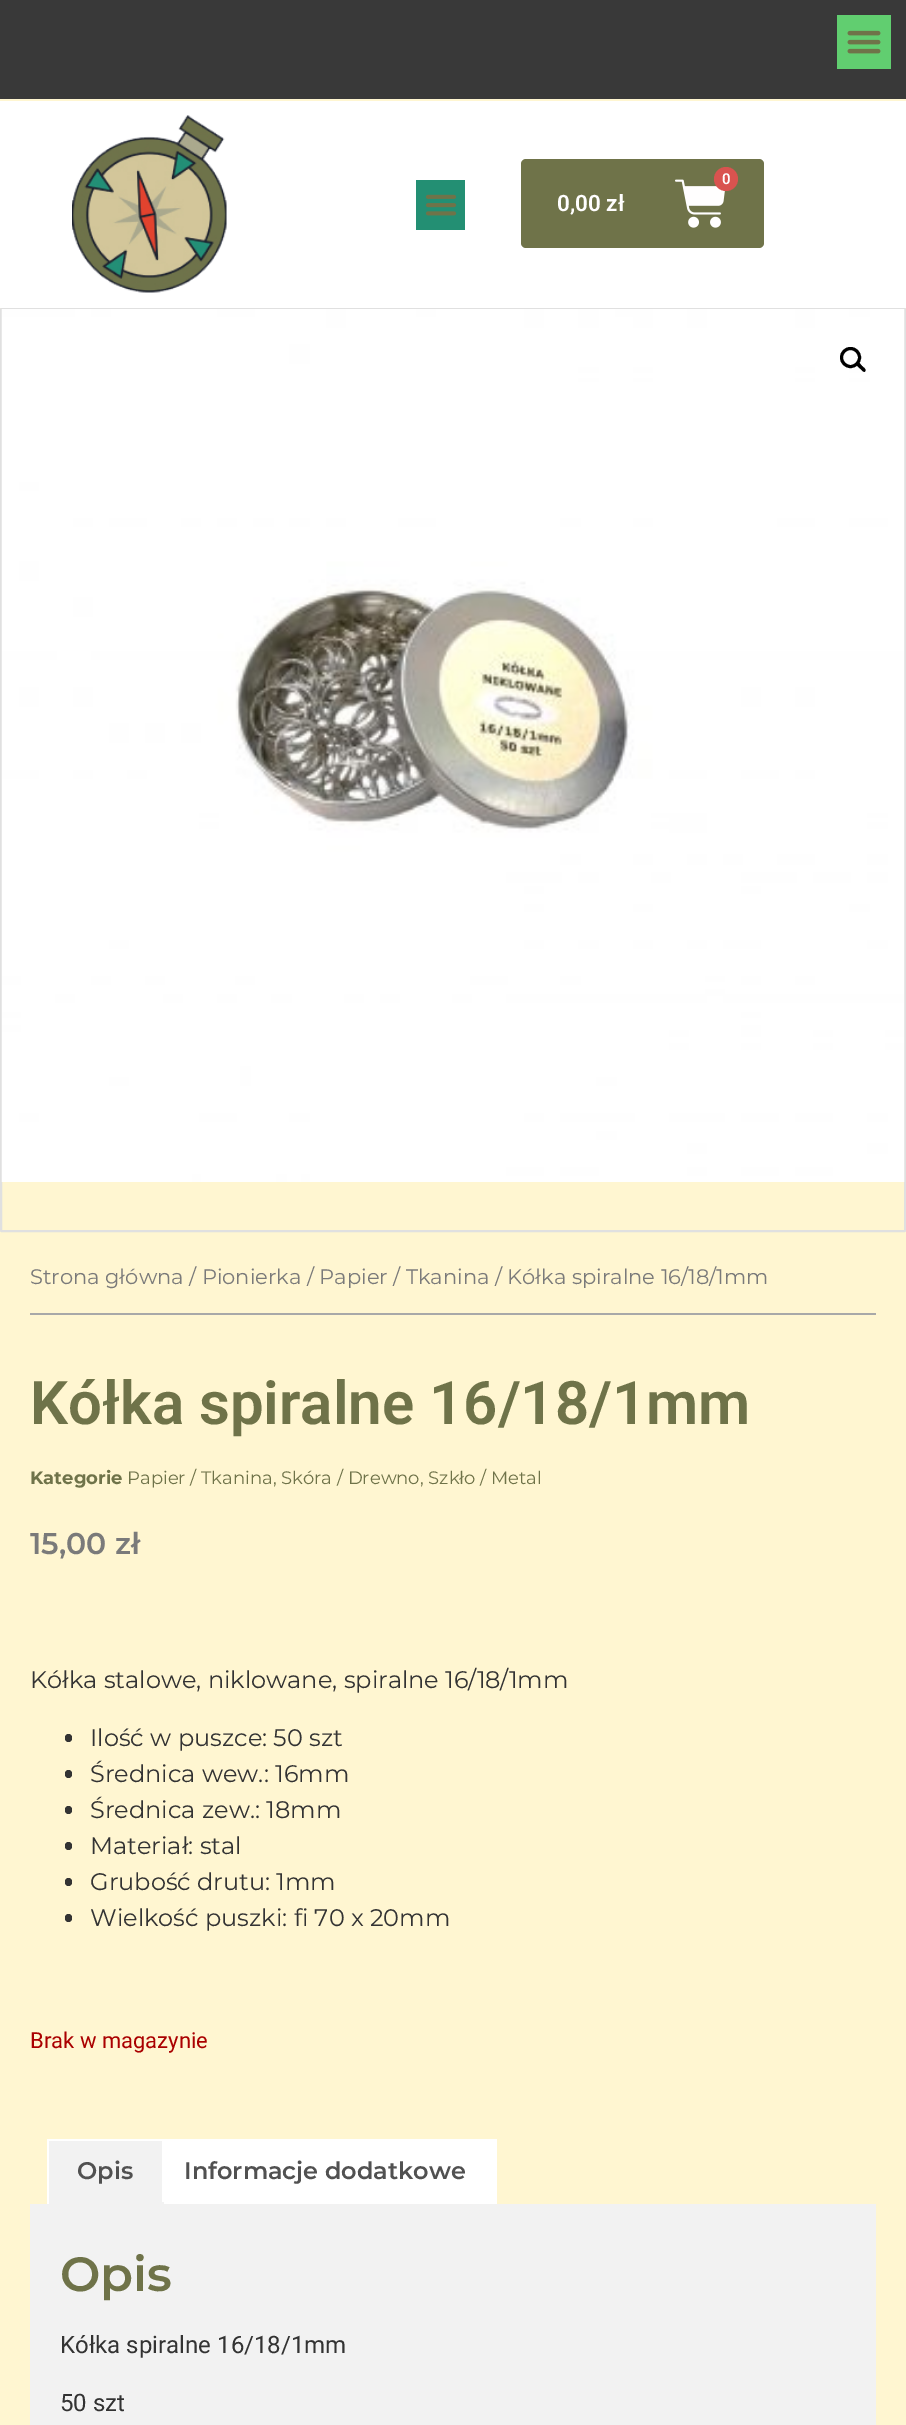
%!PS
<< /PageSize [906 2425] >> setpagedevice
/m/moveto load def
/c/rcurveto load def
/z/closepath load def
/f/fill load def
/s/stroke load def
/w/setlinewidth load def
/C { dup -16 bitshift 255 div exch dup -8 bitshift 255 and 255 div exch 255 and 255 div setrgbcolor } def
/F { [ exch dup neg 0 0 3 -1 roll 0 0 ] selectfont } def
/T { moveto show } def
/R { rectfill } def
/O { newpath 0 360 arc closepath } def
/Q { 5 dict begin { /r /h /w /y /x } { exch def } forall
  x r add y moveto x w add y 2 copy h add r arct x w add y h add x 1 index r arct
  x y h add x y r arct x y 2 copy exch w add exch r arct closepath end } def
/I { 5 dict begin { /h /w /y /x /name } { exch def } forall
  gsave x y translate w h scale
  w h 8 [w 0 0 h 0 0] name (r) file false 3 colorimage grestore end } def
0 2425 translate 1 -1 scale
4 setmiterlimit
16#FFF6D1 C
0 0 906 2425 R
16#393939 C
0 0 906 99 R
16#61CE70 C
837 15 54 54 R
(1.rgb) 847 30 34 24 I
16#FFFFFF C
0 101 906 207 R
(2.rgb) 72 115 155 178 I
16#238F73 C
416 180 49 50 R
(3.rgb) 425 194 32 22 I
16#6F7349 C
521 159 243 89 5 Q f
(4.rgb) 675 179 50 49 I
16#D9534F C
726 179 12 O f
/Roboto-SemiBold 15 F
16#FFFEFE C
(0) 722 184 T
/Roboto-SemiBold 22.5 F
(0,00 zł) 557 211 T
16#E0E0E0 C
2 w
1 309 904 922 .5 Q s
(5.rgb) 1 309 904 873 I
16#000000 C
3 w
850.5 357.5 9 O s
857 363 m 1.5 -2 4 2 5 3 c 1 1 5 3.5 3 5.5 c -1.5 1.5 -4 -2.5 -5 -3 c -1 -1 -5 -4 -3 -5.5 c z f
/Montserrat-Regular 21 F
16#7A7A7A C
(Strona główna / Pionierka / Papier / Tkanina / Kółka spiralne 16/18/1mm) 30 1284 T
16#A8A8A8 C
30 1313 846 2 R
/Roboto-SemiBold 60 F
16#6F7349 C
(Kółka spiralne 16/18/1mm) 30 1424 T
/Montserrat-Bold 18 F
(Kategorie) 30 1484 T
/Montserrat-Regular 18 F
(Papier / Tkanina, Skóra / Drewno, Szkło / Metal) 127 1484 T
/Montserrat-SemiBold 30 F
16#7A7A7A C
(15,00 zł) 30 1554 T
/Montserrat-Regular 24 F
16#333333 C
(Kółka stalowe, niklowane, spiralne 16/18/1mm) 30 1688 T
65 1734 7 8 3.5 Q f
(Ilość w puszce: 50 szt) 90 1746 T
65 1770 7 8 3.5 Q f
(Średnica wew.: 16mm) 90 1782 T
65 1806 7 8 3.5 Q f
(Średnica zew.: 18mm) 90 1818 T
65 1842 7 8 3.5 Q f
(Materiał: stal) 90 1854 T
65 1878 7 8 3.5 Q f
(Grubość drutu: 1mm) 90 1890 T
65 1914 7 8 3.5 Q f
(Wielkość puszki: fi 70 x 20mm) 90 1926 T
/Roboto-Regular 22 F
16#AA0000 C
(Brak w magazynie) 30 2048 T
16#F2F2F2 C
49 2141 113 61 R
16#FFFFFF C
47 2139 117 2 R
162 2139 2 65 R
16#F2F2F2 C
47 2202 117 2 R
16#FFFFFF C
47 2139 2 65 R
/Montserrat-SemiBold 24 F
16#515151 C
(Opis) 77 2179 T
16#FFFFFF C
164 2139 333 65 R
16#515151 C
(Informacje dodatkowe) 184 2179 T
16#F2F2F2 C
30 2204 846 221 R
/Montserrat-SemiBold 48 F
16#6F7349 C
(Opis) 60 2291 T
/Roboto-Regular 24 F
16#333333 C
(Kółka spiralne 16/18/1mm) 60 2353 T
(50 szt) 60 2411 T
showpage
